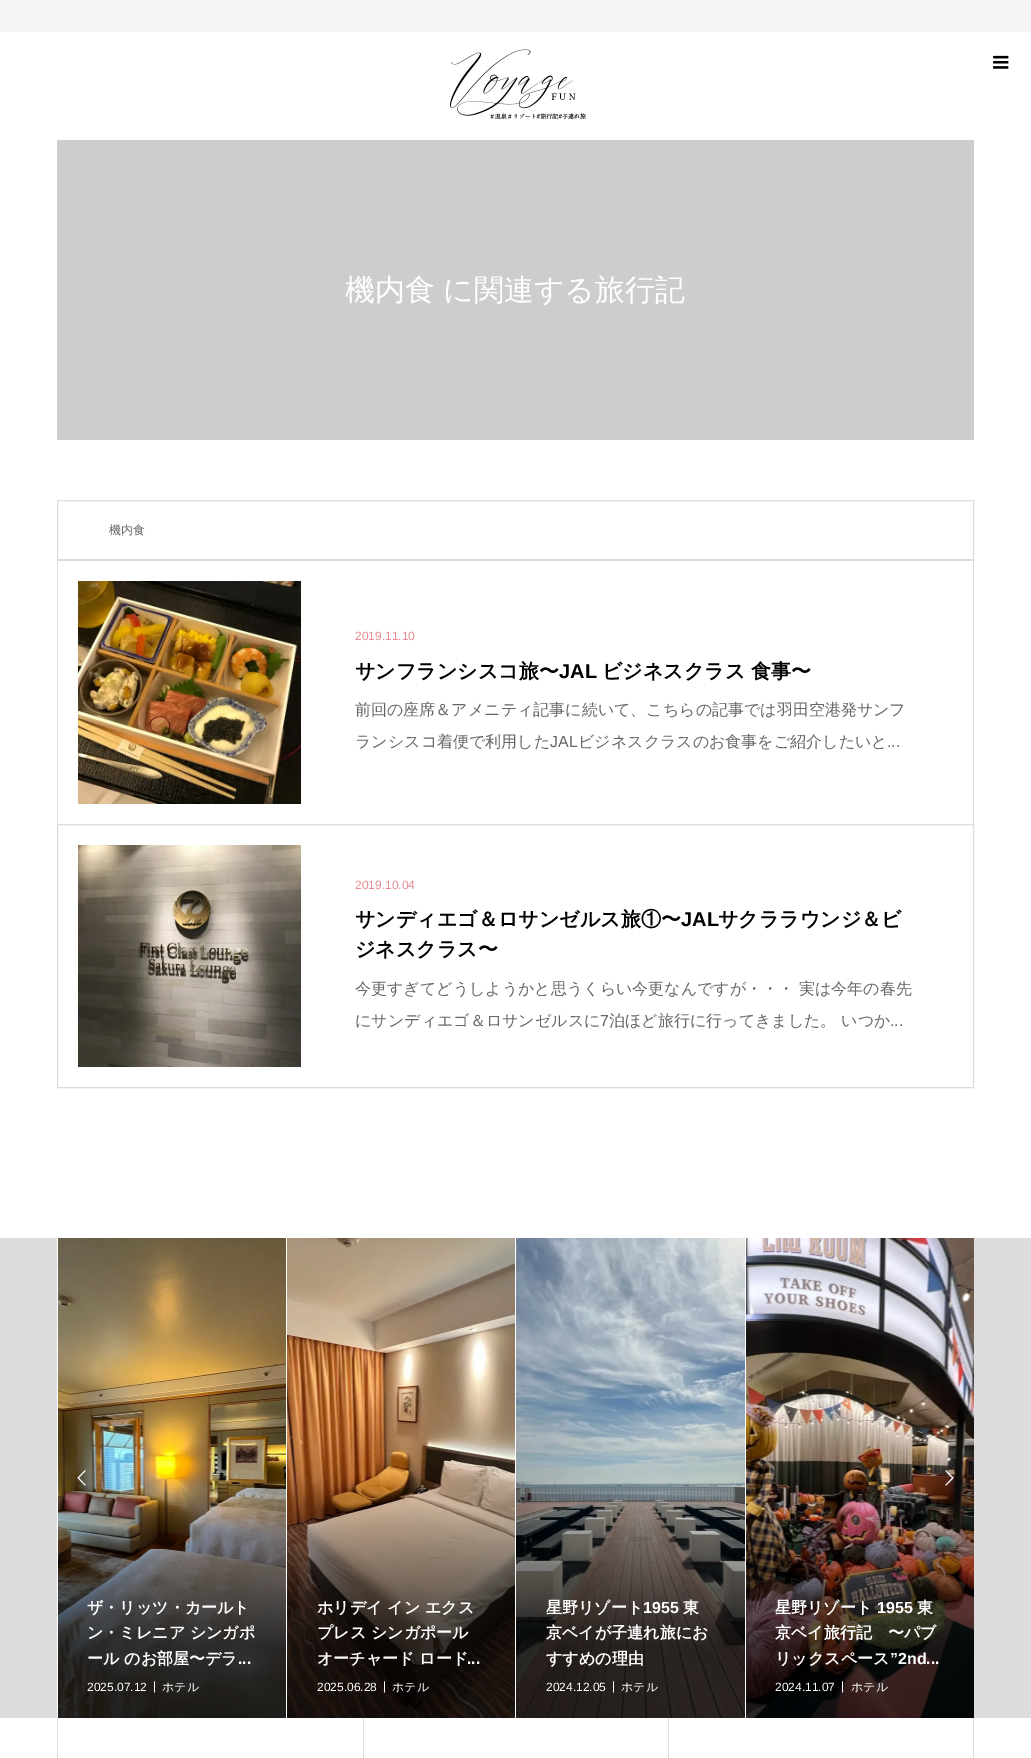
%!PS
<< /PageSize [1031 1758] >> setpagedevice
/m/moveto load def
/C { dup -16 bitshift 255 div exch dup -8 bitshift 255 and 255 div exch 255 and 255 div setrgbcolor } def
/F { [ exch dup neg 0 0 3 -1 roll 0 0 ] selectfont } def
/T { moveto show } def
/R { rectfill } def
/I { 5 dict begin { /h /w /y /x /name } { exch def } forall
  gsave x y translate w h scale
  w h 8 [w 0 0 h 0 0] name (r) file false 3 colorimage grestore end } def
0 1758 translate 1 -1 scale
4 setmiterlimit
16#F4F4F4 C
0 0 1031 1758 R
16#FFFFFF C
0 32 1031 1206 R
(1.rgb) 450 49 136 71 I
(2.rgb) 993 55 16 14 I
16#CDCDCD C
57 140 917 300 R
/WenQuanYiZenHei-Medium 30 F
16#FFFFFF C
345 300 m -1 0 32 (機内食 に関連する旅行記) widthshow
16#DDDDDD C
57.5 500.5 916 59 rectstroke
/WenQuanYiZenHei-Medium 12 F
16#666666 C
(機内食) 109 534 T
16#DDDDDD C
57 560 917 1 R
973 560 1 264 R
57 560 1 264 R
(3.rgb) 78 581 223 223 I
/LiberationSans-Regular 12 F
16#EA8A90 C
(2019.11.10) 355 640 T
/WenQuanYiZenHei-Bold 20 F
16#000000 C
(サンフランシスコ旅〜) 355 678 T
/LiberationSans-Bold 20 F
(JAL) 559 678 T
/WenQuanYiZenHei-Bold 20 F
(ビジネスクラス 食事〜) 602 678 T
/WenQuanYiZenHei-Medium 16 F
16#666666 C
(前回の座席＆アメニティ記事に続いて、こちらの記事では羽田空港発サンフ) 355 715 T
(ランシスコ着便で利用した) 355 747 T
/LiberationSans-Regular 16 F
(JAL) 550 747 T
/WenQuanYiZenHei-Medium 16 F
(ビジネスクラスのお食事をご紹介したいと) 578 747 T
/LiberationSans-Regular 16 F
(...) 887 747 T
16#DDDDDD C
57.5 824.5 916 263 rectstroke
(4.rgb) 78 845 223 222 I
/LiberationSans-Regular 12 F
16#EA8A90 C
(2019.10.04) 355 889 T
/WenQuanYiZenHei-Bold 20 F
16#000000 C
(サンディエゴ＆ロサンゼルス旅①〜) 355 926 T
/LiberationSans-Bold 20 F
(JAL) 681 926 T
/WenQuanYiZenHei-Bold 20 F
(サクララウンジ＆ビ) 718 926 T
(ジネスクラス〜) 355 956 T
/WenQuanYiZenHei-Medium 16 F
16#666666 C
(今更すぎてどうしようかと思うくらい今更なんですが・・・ 実は今年の春先) 355 994 T
(にサンディエゴ＆ロサンゼルスに) 355 1026 T
/LiberationSans-Regular 16 F
(7) 600 1026 T
/WenQuanYiZenHei-Medium 16 F
(泊ほど旅行に行ってきました。 いつか) 609 1026 T
/LiberationSans-Regular 16 F
(...) 890 1026 T
16#DDDDDD C
0 1238 1031 480 R
(7.rgb) 58 1238 228 480 I
(5.rgb) 77 1470 9 16 I
(10.rgb) 746 1238 228 480 I
(6.rgb) 945 1470 9 16 I
16#FFFFFF C
57 1238 1 480 R
286 1238 1 480 R
/WenQuanYiZenHei-Bold 16 F
(ザ・リッツ・カールト) 87 1613 T
(ン・ミレニア シンガポ) 87 1638 T
(ール のお部屋〜デラ) 87 1664 T
/LiberationSans-Bold 16 F
(...) 238 1664 T
/LiberationSans-Regular 12 F
(2025.07.12) 87 1691 T
(|) 153 1690 T
/WenQuanYiZenHei-Medium 12 F
(ホテル) 162 1691 T
515 1238 1 480 R
(8.rgb) 287 1238 228 480 I
/WenQuanYiZenHei-Bold 16 F
(ホリデイ イン エクス) 317 1613 T
(プレス シンガポール) 317 1638 T
(オーチャード ロード) 317 1664 T
/LiberationSans-Bold 16 F
(...) 467 1664 T
/LiberationSans-Regular 12 F
(2025.06.28) 317 1691 T
(|) 383 1690 T
/WenQuanYiZenHei-Medium 12 F
(ホテル) 392 1691 T
745 1238 1 480 R
(9.rgb) 516 1238 229 480 I
/WenQuanYiZenHei-Bold 16 F
(星野リゾート) 546 1613 T
/LiberationSans-Bold 16 F
(1955) 643 1613 T
/WenQuanYiZenHei-Bold 16 F
(東) 683 1613 T
(京ベイが子連れ旅にお) 546 1638 T
(すすめの理由) 546 1664 T
/LiberationSans-Regular 12 F
(2024.12.05) 546 1691 T
(|) 612 1690 T
/WenQuanYiZenHei-Medium 12 F
(ホテル) 621 1691 T
/WenQuanYiZenHei-Bold 16 F
(星野リゾート) 775 1613 T
/LiberationSans-Bold 16 F
(1955) 877 1613 T
/WenQuanYiZenHei-Bold 16 F
(東) 917 1613 T
(京ベイ旅行記　〜パブ) 775 1638 T
(リックスペース) 775 1664 T
/LiberationSans-Bold 16 F
(”2nd...) 890 1664 T
/LiberationSans-Regular 12 F
(2024.11.07) 775 1691 T
(|) 841 1690 T
/WenQuanYiZenHei-Medium 12 F
(ホテル) 851 1691 T
0 1718 1031 40 R
16#DDDDDD C
57 1718 1 40 R
363 1718 1 40 R
973 1718 1 40 R
668 1718 1 40 R
showpage
